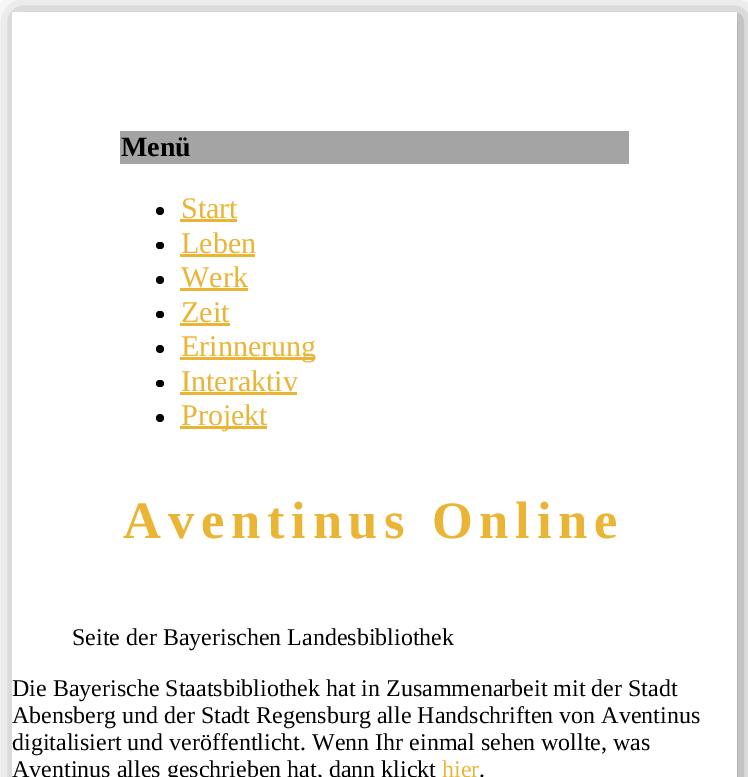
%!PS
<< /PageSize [748 777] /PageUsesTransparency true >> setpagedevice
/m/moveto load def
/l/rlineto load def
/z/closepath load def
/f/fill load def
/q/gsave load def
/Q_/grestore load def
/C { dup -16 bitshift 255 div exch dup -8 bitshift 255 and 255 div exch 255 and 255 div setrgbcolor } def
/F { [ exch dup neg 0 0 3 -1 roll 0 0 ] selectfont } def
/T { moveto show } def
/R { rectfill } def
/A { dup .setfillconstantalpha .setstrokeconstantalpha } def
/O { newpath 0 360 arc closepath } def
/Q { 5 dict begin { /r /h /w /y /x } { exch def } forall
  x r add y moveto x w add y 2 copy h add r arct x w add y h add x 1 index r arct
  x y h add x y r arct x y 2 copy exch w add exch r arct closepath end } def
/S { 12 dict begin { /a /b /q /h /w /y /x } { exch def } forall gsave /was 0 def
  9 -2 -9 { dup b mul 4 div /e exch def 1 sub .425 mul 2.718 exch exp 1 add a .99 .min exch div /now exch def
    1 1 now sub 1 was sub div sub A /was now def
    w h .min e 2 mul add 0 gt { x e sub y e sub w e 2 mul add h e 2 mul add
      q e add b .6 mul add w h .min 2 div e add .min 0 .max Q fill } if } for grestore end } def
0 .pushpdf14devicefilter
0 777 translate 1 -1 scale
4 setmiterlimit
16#FFFFFF C
0 0 748 777 R
q
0 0 m 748 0 l 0 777 l -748 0 l z 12 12 m 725 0 l 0 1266 l -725 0 l z eoclip newpath
16#000000 C
17 15 724 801 0 13 .46 S
Q_
16#A4A4A4 C
120 131 509 33 R
/LiberationSerif-Bold 28 F
16#000000 C
(Menü) 121 156 T
160 211 4 O f
/LiberationSerif-Regular 30 F
16#EAB435 C
(Start) 181 218 T
180 219 57 3 R
16#000000 C
156 242 8 7 3.5 Q f
16#EAB435 C
(Leben) 181 253 T
180 254 75 3 R
16#000000 C
160 280 4 O f
16#EAB435 C
(Werk) 181 287 T
180 288 68 3 R
16#000000 C
156 311 8 7 3.5 Q f
16#EAB435 C
(Zeit) 181 322 T
180 323 50 3 R
16#000000 C
160 349 4 O f
16#EAB435 C
180 357 135 3 R
(Erinnerung) 181 356 T
16#000000 C
156 380 8 7 3.5 Q f
16#EAB435 C
(Interaktiv) 181 391 T
180 392 117 3 R
16#000000 C
160 418 4 O f
16#EAB435 C
180 426 87 3 R
(Projekt) 181 425 T
/LiberationSerif-Bold 52.5 F
123 538 m 6.8 0 (Aventinus Online) ashow
/LiberationSerif-Regular 24 F
16#000000 C
(Seite der Bayerischen Landesbibliothek) 72 645 T
(Die Bayerische Staatsbibliothek hat in Zusammenarbeit mit der Stadt) 12 696 T
(Abensberg und der Stadt Regensburg alle Handschriften von Aventinus) 12 723 T
(digitalisiert und veröffentlicht. Wenn Ihr einmal sehen wollte, was) 12 750 T
(Aventinus alles geschrieben hat, dann klickt) 12 777 T
16#EAB435 C
(hier) 442 777 T
16#000000 C
(.) 479 777 T
.poppdf14devicefilter showpage
